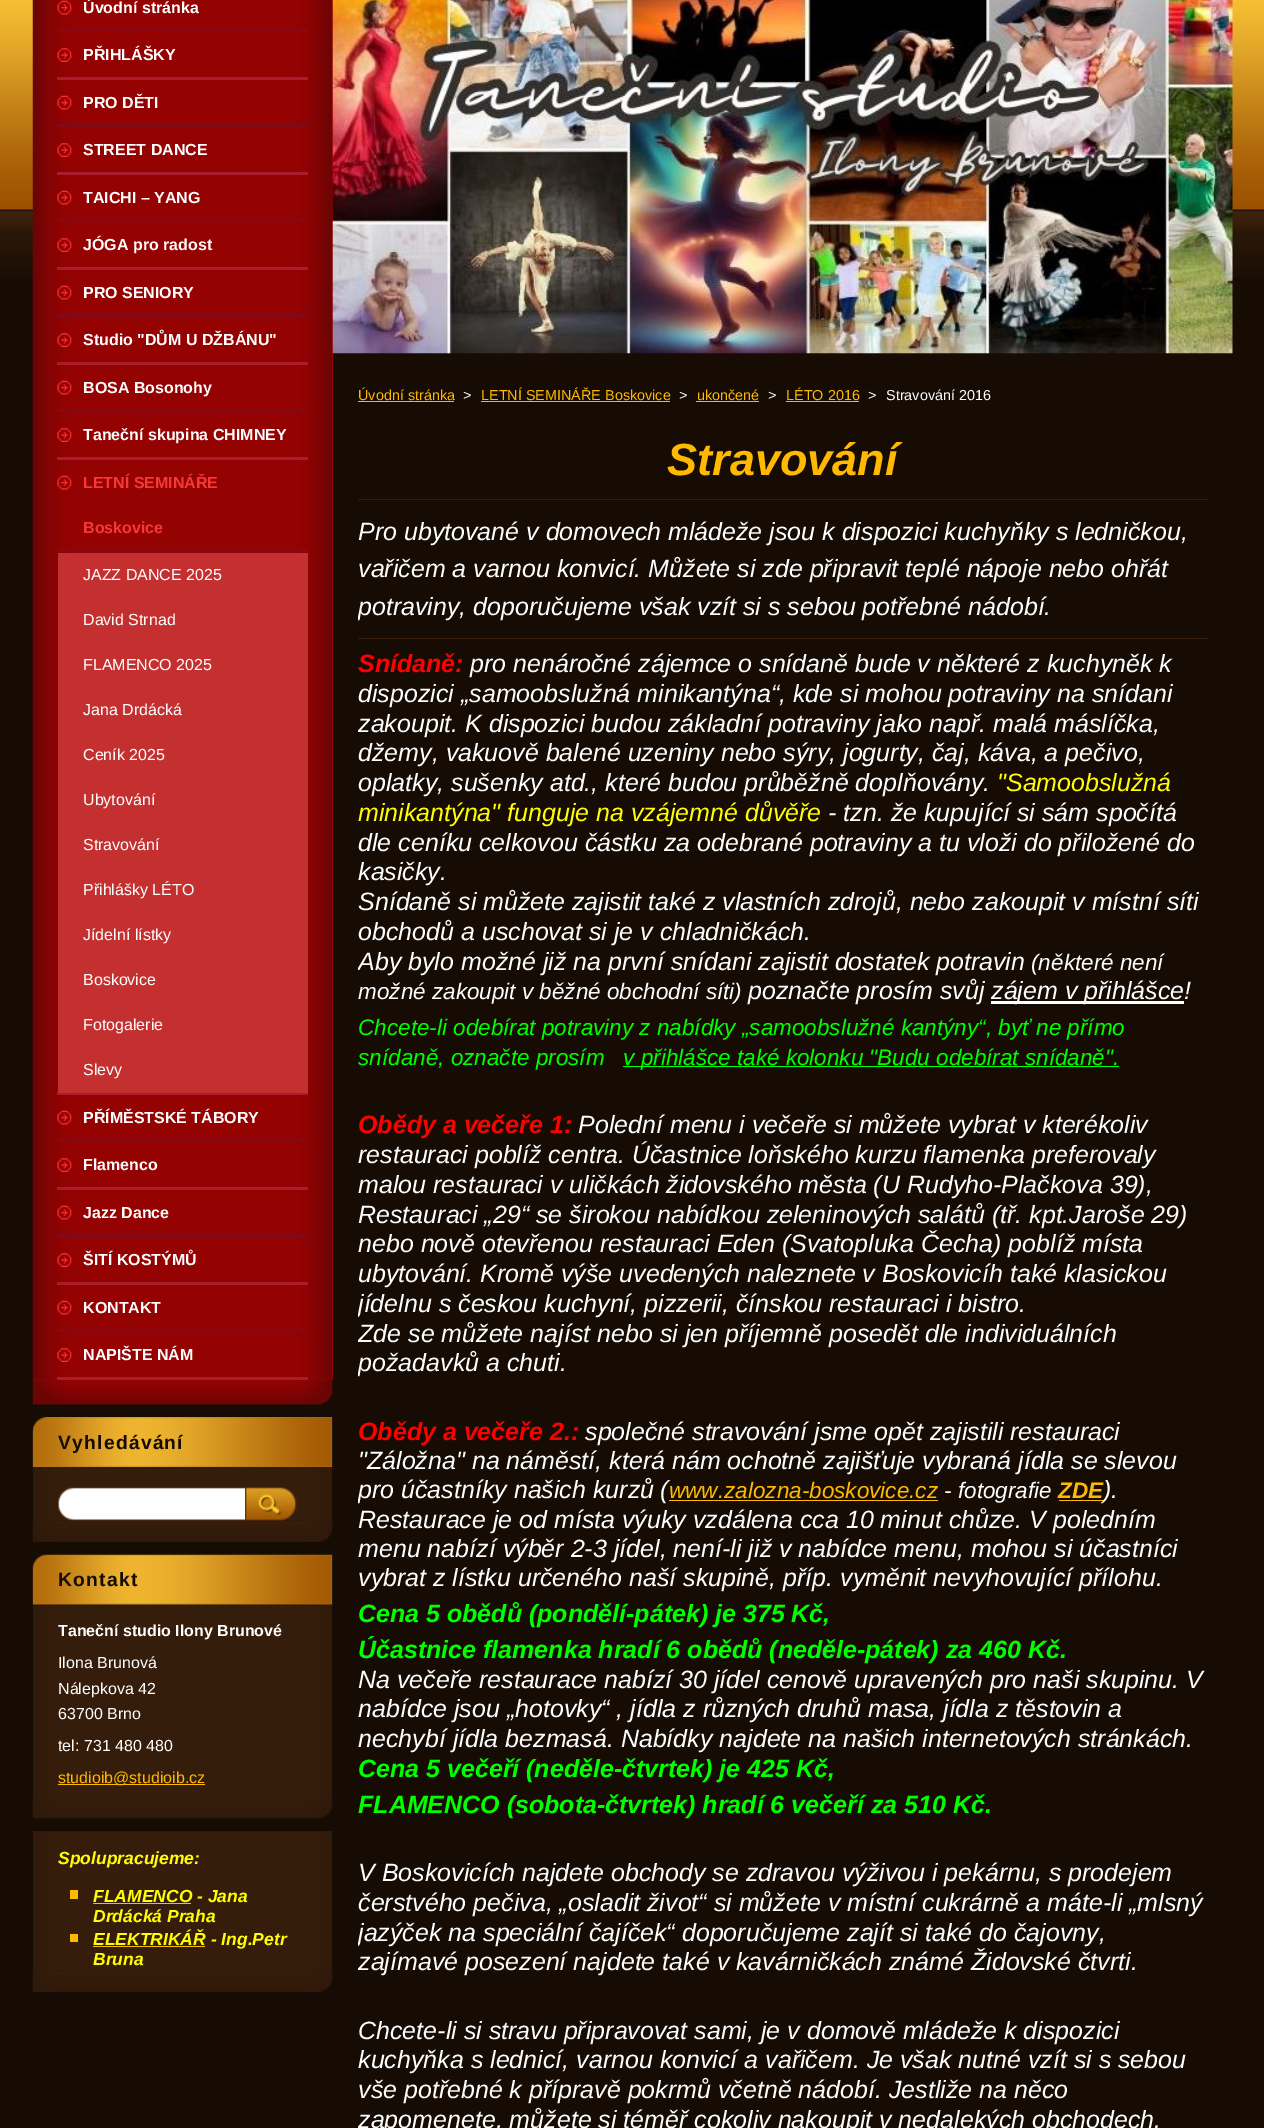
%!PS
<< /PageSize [1264 2128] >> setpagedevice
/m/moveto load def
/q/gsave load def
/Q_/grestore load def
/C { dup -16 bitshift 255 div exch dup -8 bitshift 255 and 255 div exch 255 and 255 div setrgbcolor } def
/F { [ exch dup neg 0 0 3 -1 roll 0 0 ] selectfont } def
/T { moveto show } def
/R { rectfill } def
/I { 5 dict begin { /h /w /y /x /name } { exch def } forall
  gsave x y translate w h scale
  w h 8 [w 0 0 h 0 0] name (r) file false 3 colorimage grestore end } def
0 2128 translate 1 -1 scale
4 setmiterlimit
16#160C04 C
0 0 1264 2128 R
(1.rgb) 0 0 1264 277 I
(2.rgb) 32 1379 301 26 I
16#9E0101 C
33 0 300 1380 R
(3.rgb) 32 0 301 1380 I
16#810A19 C
57 29 251 3 R
(4.rgb) 57 0 15 15 I
/LiberationSans-Bold 16 F
16#FFFFFF C
(Úvodní stránka) 83 13 T
16#AA1D2E C
57 77 251 3 R
(5.rgb) 57 48 15 14 I
16#FFFFFF C
(PŘIHLÁŠKY) 83 60 T
16#810A19 C
57 124 251 3 R
(4.rgb) 57 95 15 15 I
16#FFFFFF C
(PRO DĚTI) 83 108 T
16#AA1D2E C
57 172 251 3 R
(5.rgb) 57 143 15 14 I
16#FFFFFF C
(STREET DANCE) 83 155 T
16#810A19 C
57 219 251 3 R
(4.rgb) 57 190 15 15 I
16#FFFFFF C
(TAICHI – YANG) 83 203 T
16#AA1D2E C
57 267 251 3 R
(5.rgb) 57 238 15 14 I
16#FFFFFF C
(JÓGA pro radost) 83 250 T
16#810A19 C
57 314 251 3 R
(4.rgb) 57 285 15 15 I
16#FFFFFF C
(PRO SENIORY) 83 298 T
16#AA1D2E C
57 362 251 3 R
(5.rgb) 57 333 15 14 I
16#FFFFFF C
(Studio "DŮM U DŽBÁNU") 83 345 T
16#810A19 C
57 409 251 3 R
(6.rgb) 57 380 15 15 I
16#FFFFFF C
(BOSA Bosonohy) 83 393 T
16#AA1D2E C
57 457 251 3 R
(5.rgb) 57 428 15 14 I
16#FFFFFF C
(Taneční skupina CHIMNEY) 83 440 T
16#AA1D2E C
57 1092 251 3 R
(4.rgb) 57 475 15 15 I
16#F83737 C
(LETNÍ SEMINÁŘE) 83 488 T
(Boskovice) 83 533 T
16#810A19 C
57 549 251 3 R
16#C43030 C
58 553 250 540 R
/LiberationSans-Regular 16 F
16#FFFFFF C
(JAZZ DANCE 2025) 83 580 T
(David Strnad) 83 625 T
(FLAMENCO 2025) 83 670 T
(Jana Drdácká) 83 715 T
(Ceník 2025) 83 760 T
(Ubytování) 83 805 T
(Stravování) 83 850 T
(Přihlášky LÉTO) 83 895 T
(Jídelní lístky) 83 940 T
(Boskovice) 83 985 T
(Fotogalerie) 83 1030 T
(Slevy) 83 1075 T
16#810A19 C
57 1139 251 3 R
(4.rgb) 57 1110 15 15 I
/LiberationSans-Bold 16 F
16#FFFFFF C
(PŘÍMĚSTSKÉ TÁBORY) 83 1123 T
16#AA1D2E C
57 1187 251 3 R
(5.rgb) 57 1158 15 14 I
16#FFFFFF C
(Flamenco) 83 1170 T
16#810A19 C
57 1234 251 3 R
(4.rgb) 57 1205 15 15 I
16#FFFFFF C
(Jazz Dance) 83 1218 T
16#AA1D2E C
57 1282 251 3 R
(5.rgb) 57 1253 15 14 I
16#FFFFFF C
(ŠITÍ KOSTÝMŮ) 83 1265 T
16#810A19 C
57 1329 251 3 R
(4.rgb) 57 1300 15 15 I
16#FFFFFF C
(KONTAKT) 83 1313 T
16#AA1D2E C
57 1377 251 3 R
(5.rgb) 57 1348 15 14 I
16#FFFFFF C
(NAPIŠTE NÁM) 83 1360 T
(7.rgb) 32 1520 301 22 I
(8.rgb) 32 1417 301 50 I
/LiberationSans-Bold 19.25 F
16#160C04 C
58 1449 m 1.25 0 (Vyhledávání) ashow
(9.rgb) 33 1467 299 54 I
16#2F1A0A C
33 1468 300 1 R
(10.rgb) 57 1487 190 34 I
(11.rgb) 245 1487 52 34 I
(12.rgb) 32 1797 301 22 I
(14.rgb) 33 1604 299 193 I
(13.rgb) 32 1554 301 51 I
16#160C04 C
58 1586 m 1.25 0 (Kontakt) ashow
16#2F1A0A C
33 1605 300 1 R
/LiberationSans-Bold 16 F
16#FFFFFF C
(Taneční studio Ilony Brunové) 58 1636 T
/LiberationSans-Regular 16 F
(Ilona Brunová) 58 1668 T
(Nálepkova 42) 58 1694 T
(63700 Brno) 58 1719 T
(tel: 731 480 480) 58 1751 T
16#FFB901 C
58 1784 147 1 R
(studioib@studioib.cz) 58 1783 T
(7.rgb) 32 1970 301 22 I
(15.rgb) 33 1832 299 139 I
16#2F1A0A C
33 1831 300 1 R
/LiberationSans-BoldItalic 17.5 F
16#FFFF00 C
(Spolupracujeme:) 58 1864 T
16#FFB901 C
70 1890 8 9 R
16#FFFF00 C
(FLAMENCO - Jana) 93 1902 T
16#FFB901 C
93 1903 98 1 R
16#FFFF00 C
(Drdácká Praha) 93 1922 T
16#FFB901 C
70 1934 8 8 R
93 1946 112 1 R
16#FFFF00 C
(ELEKTRIKÁŘ - Ing.Petr) 93 1945 T
(Bruna) 93 1965 T
(16.rgb) 332 0 901 354 I
/LiberationSans-Regular 14.4 F
16#FFB901 C
(Úvodní stránka) 358 400 T
358 401 96 1 R
16#FFFFFF C
(>) 463 400 T
16#FFB901 C
(LETNÍ SEMINÁŘE Boskovice) 481 400 T
481 401 189 1 R
16#FFFFFF C
(>) 679 400 T
16#FFB901 C
(ukončené) 697 400 T
696 401 63 1 R
16#FFFFFF C
(>) 768 400 T
16#FFB901 C
(LÉTO 2016) 786 400 T
786 401 73 1 R
16#FFFFFF C
(>) 868 400 T
(Stravování 2016) 886 400 T
16#361D0B C
358 499 850 1 R
/LiberationSans-BoldItalic 45 F
16#FFB901 C
(Stravování) 667 475 T
16#361D0B C
358 638 850 1 R
/LiberationSans-Italic 25 F
16#FFFFFF C
(Pro ubytované v domovech mládeže jsou k dispozici kuchyňky s ledničkou,) 358 540 T
(vařičem a varnou konvicí. Můžete si zde připravit teplé nápoje nebo ohřát) 358 577 T
q
358 434 850 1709 rectclip
(potraviny, doporučujeme však vzít si s sebou potřebné nádobí.) 358 615 T
Q_
/LiberationSans-BoldItalic 25 F
16#FF0000 C
(Snídaně:) 358 672 T
/LiberationSans-Italic 25 F
16#FFFFFF C
(pro nenáročné zájemce o snídaně bude v některé z kuchyněk k) 470 672 T
(dispozici „samoobslužná minikantýna“, kde si mohou potraviny na snídani) 358 702 T
(zakoupit. K dispozici budou základní potraviny jako např. malá máslíčka,) 358 732 T
(džemy, vakuově balené uzeniny nebo sýry, jogurty, čaj, káva, a pečivo,) 358 761 T
(oplatky, sušenky atd., které budou průběžně doplňovány.) 358 791 T
16#FFFF00 C
("Samoobslužná) 997 791 T
(minikantýna" funguje na vzájemné důvěře) 358 821 T
16#FFFFFF C
(- tzn. že kupující si sám spočítá) 828 821 T
(dle ceníku celkovou částku za odebrané potraviny a tu vloži do přiložené do) 358 851 T
(kasičky.) 358 880 T
(Snídaně si můžete zajistit také z vlastních zdrojů, nebo zakoupit v místní síti) 358 910 T
(obchodů a uschovat si je v chladničkách.) 358 940 T
q
358 434 850 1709 rectclip
(Aby bylo možné již na první snídani zajistit dostatek potravin) 358 970 T
Q_
/LiberationSans-Italic 22.5 F
(\(některé není) 1031 970 T
(možné zakoupit v běžné obchodní síti\)) 358 999 T
/LiberationSans-Italic 25 F
(poznačte prosím svůj) 748 999 T
991 1001 193 3 R
(zájem v přihlášce!) 991 999 T
/LiberationSans-Italic 22.5 F
16#00FF00 C
(Chcete-li odebírat potraviny z nabídky „samoobslužné kantýny“, byť ne přímo) 358 1035 T
(snídaně, označte prosím) 358 1065 T
623 1066 496 1 R
(v přihlášce také kolonku "Budu odebírat snídaně".) 623 1065 T
/LiberationSans-BoldItalic 25 F
16#FF0000 C
(Obědy a večeře 1:) 358 1133 T
/LiberationSans-Italic 25 F
16#FFFFFF C
(Polední menu i večeře si můžete vybrat v kterékoliv) 578 1133 T
(restauraci poblíž centra. Účastnice loňského kurzu flamenka preferovaly) 358 1163 T
(malou restauraci v uličkách židovského města \(U Rudyho-Plačkova 39\),) 358 1193 T
(Restauraci „29“ se širokou nabídkou zeleninových salátů \(tř. kpt.Jaroše 29\)) 358 1223 T
(nebo nově otevřenou restauraci Eden \(Svatopluka Čecha\) poblíž místa) 358 1252 T
(ubytování. Kromě výše uvedených naleznete v Boskovicíh také klasickou) 358 1282 T
q
358 434 850 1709 rectclip
(jídelnu s českou kuchyní, pizzerii, čínskou restauraci i bistro.) 358 1312 T
(Zde se můžete najíst nebo si jen příjemně posedět dle individuálních) 358 1342 T
(požadavků a chuti.) 358 1371 T
Q_
/LiberationSans-BoldItalic 25 F
16#FF0000 C
(Obědy a večeře 2.:) 358 1440 T
/LiberationSans-Italic 25 F
16#FFFFFF C
(společné stravování jsme opět zajistili restauraci) 585 1440 T
("Záložna" na náměstí, která nám ochotně zajišťuje vybraná jídla se slevou) 358 1469 T
q
358 434 850 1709 rectclip
(pro účastníky našich kurzů) 358 1498 T
Q_
(\() 660 1498 T
16#FFB901 C
669 1500 269 1 R
/LiberationSans-Italic 22.5 F
(www.zalozna-boskovice.cz) 669 1498 T
16#FFFFFF C
(- fotografie) 944 1498 T
/LiberationSans-BoldItalic 22.5 F
16#FFB901 C
(ZDE) 1058 1498 T
1059 1500 45 1 R
/LiberationSans-Italic 25 F
16#FFFFFF C
(\).) 1103 1498 T
(Restaurace je od místa výuky vzdálena cca 10 minut chůze. V poledním) 358 1528 T
(menu nabízí výběr 2-3 jídel, není-li již v nabídce menu, mohou si účastníci) 358 1557 T
(vybrat z lístku určeného naší skupině, příp. vyměnit nevyhovující přílohu.) 358 1586 T
/LiberationSans-BoldItalic 25 F
16#00FF00 C
(Cena 5 obědů \(pondělí-pátek\) je 375 Kč,) 358 1622 T
(Účastnice flamenka hradí 6 obědů \(neděle-pátek\) za 460 Kč.) 358 1658 T
/LiberationSans-Italic 25 F
16#FFFFFF C
(Na večeře restaurace nabízí 30 jídel cenově upravených pro naši skupinu. V) 358 1688 T
(nabídce jsou „hotovky“ , jídla z různých druhů masa, jídla z těstovin a) 358 1717 T
(nechybí jídla bezmasá. Nabídky najdete na našich internetových stránkách.) 358 1747 T
/LiberationSans-BoldItalic 25 F
16#00FF00 C
(Cena 5 večeří \(neděle-čtvrtek\) je 425 Kč,) 358 1777 T
(FLAMENCO \(sobota-čtvrtek\) hradí 6 večeří za 510 Kč.) 358 1813 T
/LiberationSans-Italic 25 F
16#FFFFFF C
(V Boskovicích najdete obchody se zdravou výživou i pekárnu, s prodejem) 358 1881 T
(čerstvého pečiva, „osladit život“ si můžete v místní cukrárně a máte-li „mlsný) 358 1911 T
q
358 434 850 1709 rectclip
(jazýček na speciální čajíček“ doporučujeme zajít si také do čajovny,) 358 1941 T
Q_
(zajímavé posezení najdete také v kavárničkách známé Židovské čtvrti.) 358 1970 T
(Chcete-li si stravu připravovat sami, je v domově mládeže k dispozici) 358 2039 T
(kuchyňka s lednicí, varnou konvicí a vařičem. Je však nutné vzít si s sebou) 358 2068 T
(vše potřebné k přípravě pokrmů včetně nádobí. Jestliže na něco) 358 2098 T
(zapomenete, můžete si téměř cokoliv nakoupit v nedalekých obchodech.) 358 2128 T
showpage
